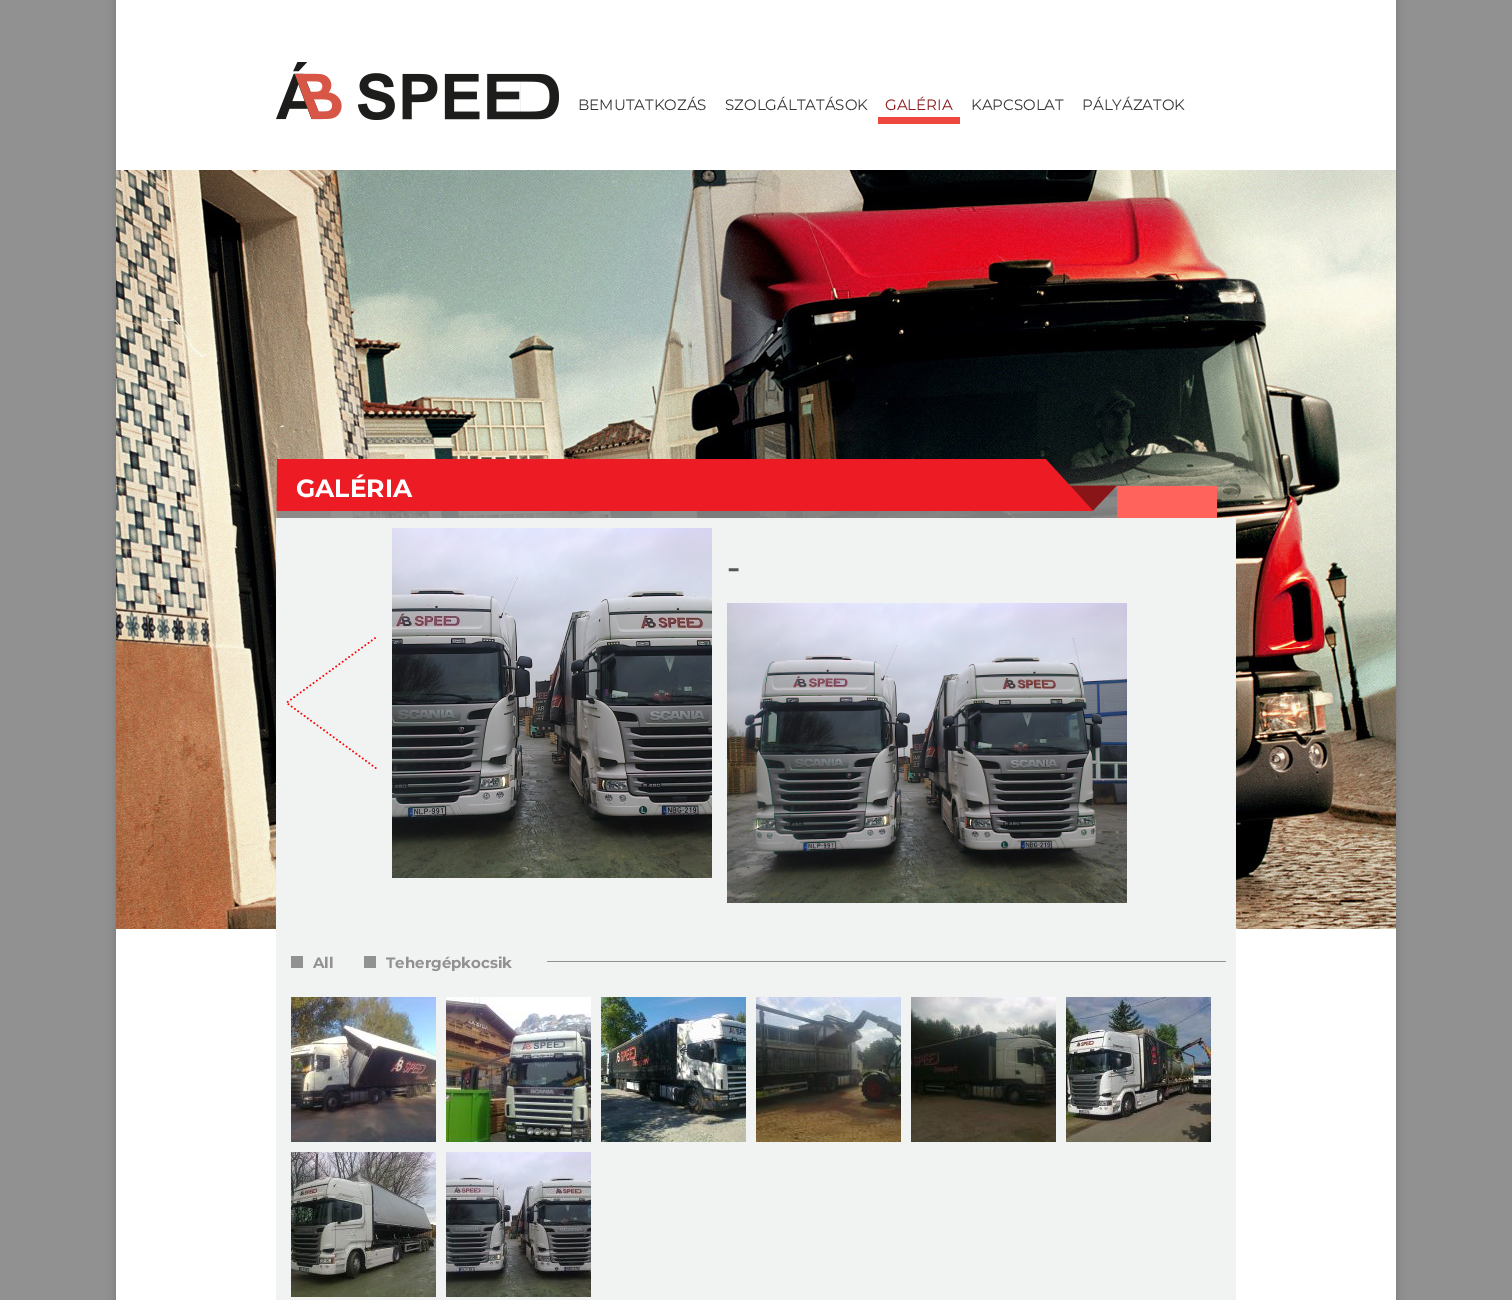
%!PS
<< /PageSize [1512 1300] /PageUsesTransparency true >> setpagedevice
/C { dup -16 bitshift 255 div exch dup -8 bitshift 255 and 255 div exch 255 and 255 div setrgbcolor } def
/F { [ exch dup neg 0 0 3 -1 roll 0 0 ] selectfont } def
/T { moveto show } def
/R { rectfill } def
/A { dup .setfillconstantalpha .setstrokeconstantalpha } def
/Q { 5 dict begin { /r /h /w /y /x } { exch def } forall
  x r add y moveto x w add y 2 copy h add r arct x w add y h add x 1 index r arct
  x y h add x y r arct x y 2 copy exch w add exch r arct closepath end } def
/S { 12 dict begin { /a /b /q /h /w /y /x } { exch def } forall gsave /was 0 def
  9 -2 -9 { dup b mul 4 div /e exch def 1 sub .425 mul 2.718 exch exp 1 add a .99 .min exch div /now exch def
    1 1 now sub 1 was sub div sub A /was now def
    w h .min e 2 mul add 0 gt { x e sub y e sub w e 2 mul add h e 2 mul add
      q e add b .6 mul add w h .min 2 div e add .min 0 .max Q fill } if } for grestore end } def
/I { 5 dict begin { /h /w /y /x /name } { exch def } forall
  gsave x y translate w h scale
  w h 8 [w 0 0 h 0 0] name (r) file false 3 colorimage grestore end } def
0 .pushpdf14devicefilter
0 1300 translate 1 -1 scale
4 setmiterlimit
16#919191 C
0 0 1512 1300 R
16#000000 C
116 0 1280 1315 0 5 .2 S
16#FFFFFF C
116 0 1280 1300 R
(1.rgb) 276 62 283 58 I
/Montserrat-Regular 15 F
16#333333 C
(BEMUTATKOZÁS) 578 110 T
(SZOLGÁLTATÁSOK) 725 110 T
16#EE4740 C
878 117 82 7 R
16#8A1519 C
(GALÉRIA) 885 110 T
16#333333 C
(KAPCSOLAT) 971 110 T
(PÁLYÁZATOK) 1082 110 T
(2.rgb) 116 170 1280 759 I
(3.rgb) 276 459 941 59 I
/Montserrat-Bold 25 F
16#FFFFFF C
(GALÉRIA) 296 497 T
16#F1F2F2 C
276 518 960 782 R
(4.rgb) 392 528 320 350 I
/Exo2-Bold 32 F
16#555555 C
(-) 727 578 T
(5.rgb) 727 603 400 300 I
(6.rgb) 286 637 91 132 I
16#919191 C
547 961 679 1 R
291 956 12 12 R
/Montserrat-Bold 15 F
(All) 313 968 T
364 956 12 12 R
(Tehergépkocsik) 386 968 T
(7.rgb) 291 997 145 145 I
(8.rgb) 446 997 145 145 I
(9.rgb) 601 997 145 145 I
(10.rgb) 756 997 145 145 I
(11.rgb) 911 997 145 145 I
(12.rgb) 1066 997 145 145 I
(13.rgb) 291 1152 145 145 I
(14.rgb) 446 1152 145 145 I
.poppdf14devicefilter showpage
